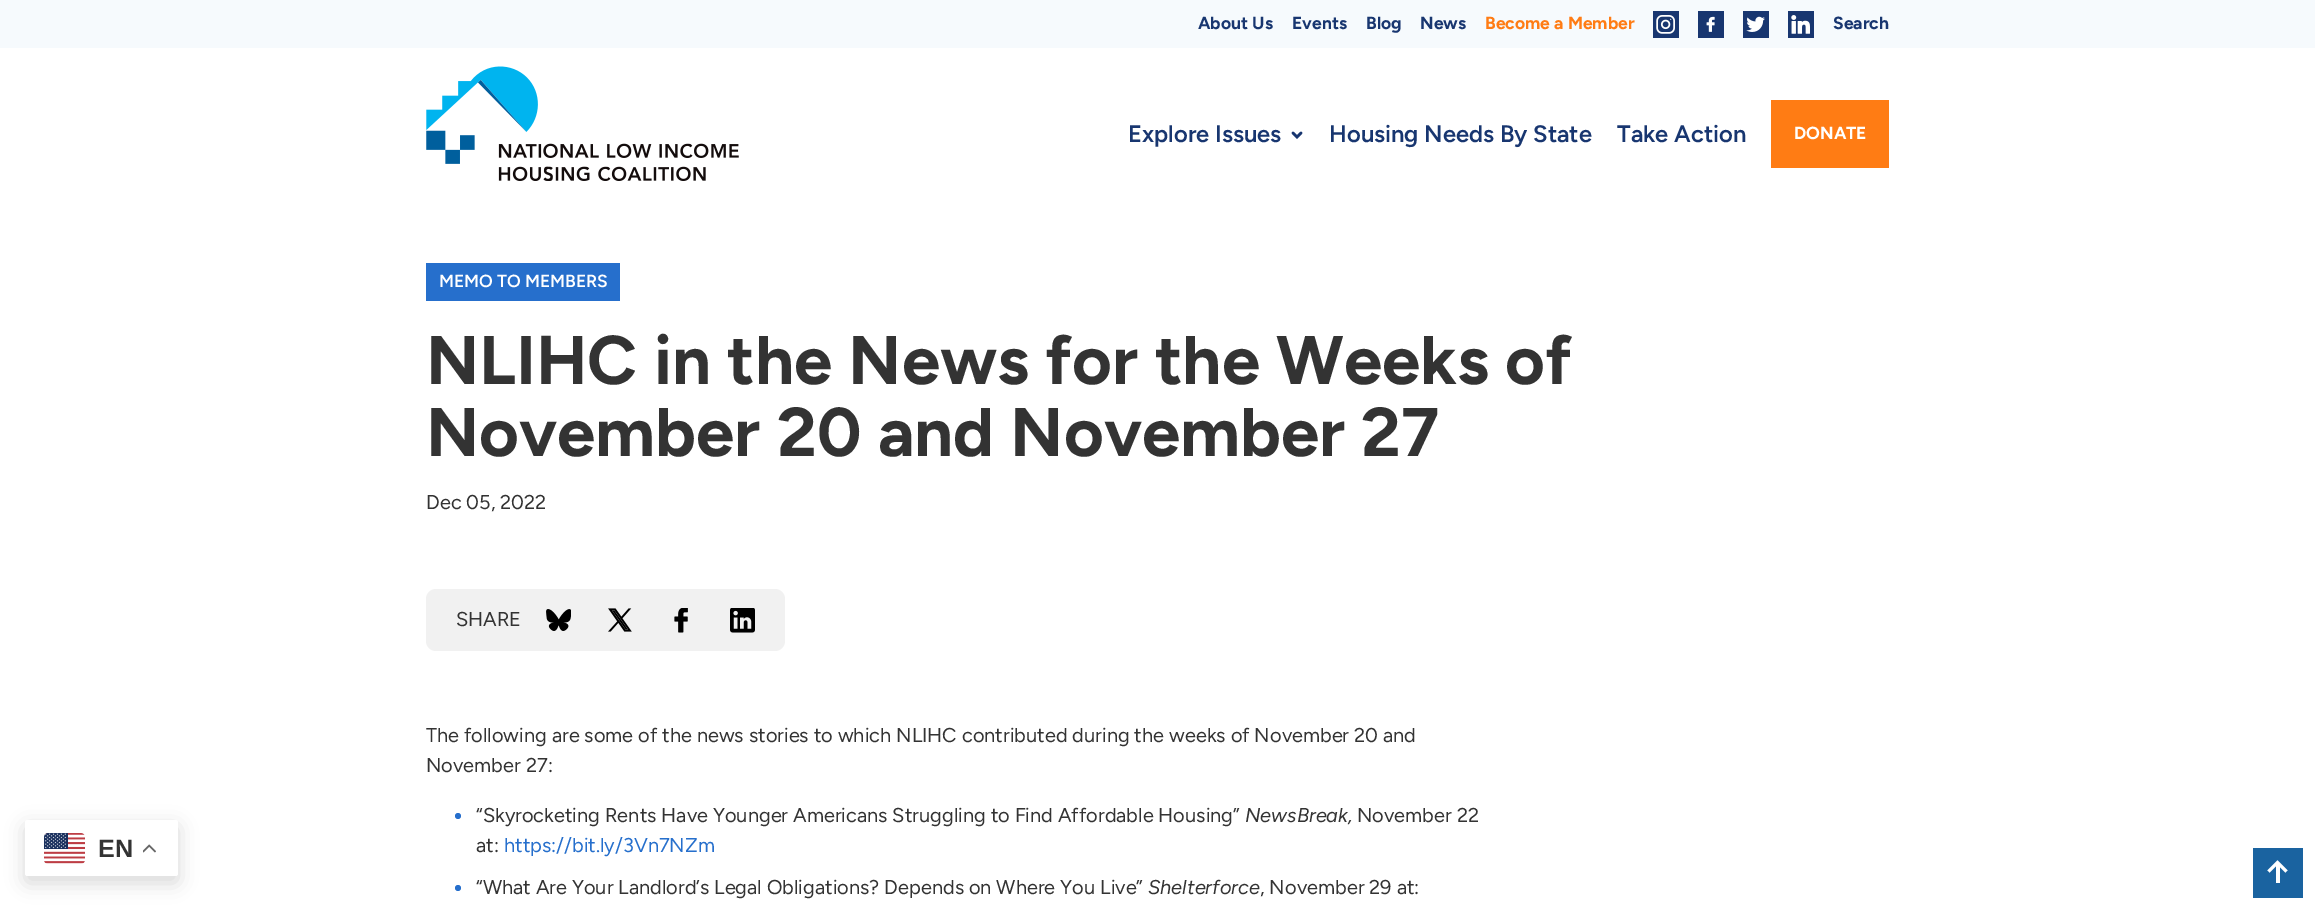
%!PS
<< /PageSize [2315 909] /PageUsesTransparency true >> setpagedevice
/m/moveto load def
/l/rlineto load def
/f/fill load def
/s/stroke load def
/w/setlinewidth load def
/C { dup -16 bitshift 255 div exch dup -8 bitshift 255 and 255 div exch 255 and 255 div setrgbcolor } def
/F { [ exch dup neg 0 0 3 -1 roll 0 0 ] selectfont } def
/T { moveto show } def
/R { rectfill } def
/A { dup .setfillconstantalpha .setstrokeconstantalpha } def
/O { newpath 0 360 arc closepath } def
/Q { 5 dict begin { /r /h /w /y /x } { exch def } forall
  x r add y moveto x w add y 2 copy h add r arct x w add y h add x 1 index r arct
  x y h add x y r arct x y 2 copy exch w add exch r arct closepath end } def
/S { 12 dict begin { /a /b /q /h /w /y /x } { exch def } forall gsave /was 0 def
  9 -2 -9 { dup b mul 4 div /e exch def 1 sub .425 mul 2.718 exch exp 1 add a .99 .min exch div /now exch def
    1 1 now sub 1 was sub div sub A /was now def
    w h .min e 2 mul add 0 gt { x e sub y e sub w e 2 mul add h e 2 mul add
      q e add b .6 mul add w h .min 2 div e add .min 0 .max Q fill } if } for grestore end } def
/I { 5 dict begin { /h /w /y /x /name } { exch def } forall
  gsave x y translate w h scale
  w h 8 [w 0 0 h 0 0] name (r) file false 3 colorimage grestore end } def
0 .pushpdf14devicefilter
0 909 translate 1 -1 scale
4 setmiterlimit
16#FFFFFF C
0 0 2315 909 R
16#F6FAFD C
0 0 2315 48 R
/Figtree-Bold 17.5 F
16#183670 C
(About Us) 1198 29 T
(Events) 1292 29 T
(Blog) 1366 29 T
(News) 1420 29 T
16#FF7C14 C
(Become a Member) 1485 29 T
16#183670 C
1653 11 26 27 R
(1.rgb) 1656 15 19 19 I
1698 11 26 27 R
(2.rgb) 1706 16 9 16 I
1743 11 26 27 R
(3.rgb) 1746 16 19 16 I
1788 11 26 27 R
(4.rgb) 1791 15 19 19 I
(Search) 1833 29 T
(5.rgb) 426 66 313 115 I
/Figtree-SemiBold 23.75 F
(Explore Issues) 1128 142 T
2.5 w
1 setlinecap
1293 133 m 4 4 l 4 -4 l s
(Housing Needs By State) 1329 142 T
(Take Action) 1617 142 T
16#FF7C14 C
1771 100 118 68 R
/Figtree-Bold 17.5 F
16#FFFFFF C
(DONATE) 1794 139 T
16#000000 C
25 826 153 57 2.5 9.5 .15 S
16#FFFFFF C
25 820 153 56 2.5 Q f
(6.rgb) 44 833 41 31 I
/LiberationSans-Bold 25 F
16#333333 C
(EN) 98 857 T
(7.rgb) 143 844 13 9 I
16#266FCC C
426 263 194 38 R
/Figtree-SemiBold 17.5 F
16#FFFFFF C
(MEMO TO MEMBERS) 439 287 T
/Figtree-Bold 68.75 F
16#333333 C
(NLIHC in the News for the Weeks of) 426 384 T
(November 20 and November 27) 426 456 T
/Figtree-Regular 20 F
(Dec 05, 2022) 426 509 T
16#F1F1F1 C
426 589 359 62 10 Q f
16#333333 C
(SHARE) 456 626 T
(8.rgb) 546 609 25 22 I
(9.rgb) 608 608 24 24 I
(10.rgb) 674 608 14 25 I
(11.rgb) 730 608 25 25 I
(The following are some of the news stories to which NLIHC contributed during the weeks of November 20 and) 426 742 T
(November 27:) 426 772 T
16#266FCC C
458 816 3 O f
16#333333 C
(“Skyrocketing Rents Have Younger Americans Struggling to Find Affordable Housing”) 476 822 T
/Figtree-Italic 20 F
(NewsBreak,) 1245 822 T
/Figtree-Regular 20 F
(November 22) 1357 822 T
(at:) 476 852 T
16#266FCC C
(https://bit.ly/3Vn7NZm) 504 852 T
458 888 3 O f
16#333333 C
(“What Are Your Landlord’s Legal Obligations? Depends on Where You Live”) 476 894 T
/Figtree-Italic 20 F
(Shelterforce) 1148 894 T
/Figtree-Regular 20 F
(, November 29 at:) 1260 894 T
16#1A63A0 C
2253 848 50 50 R
16#FFFFFF C
2276 864 4 19 R
3.1 w
0 setlinecap
2268.5 871.5 m 9 -9 l 9 9 l s
.poppdf14devicefilter showpage
